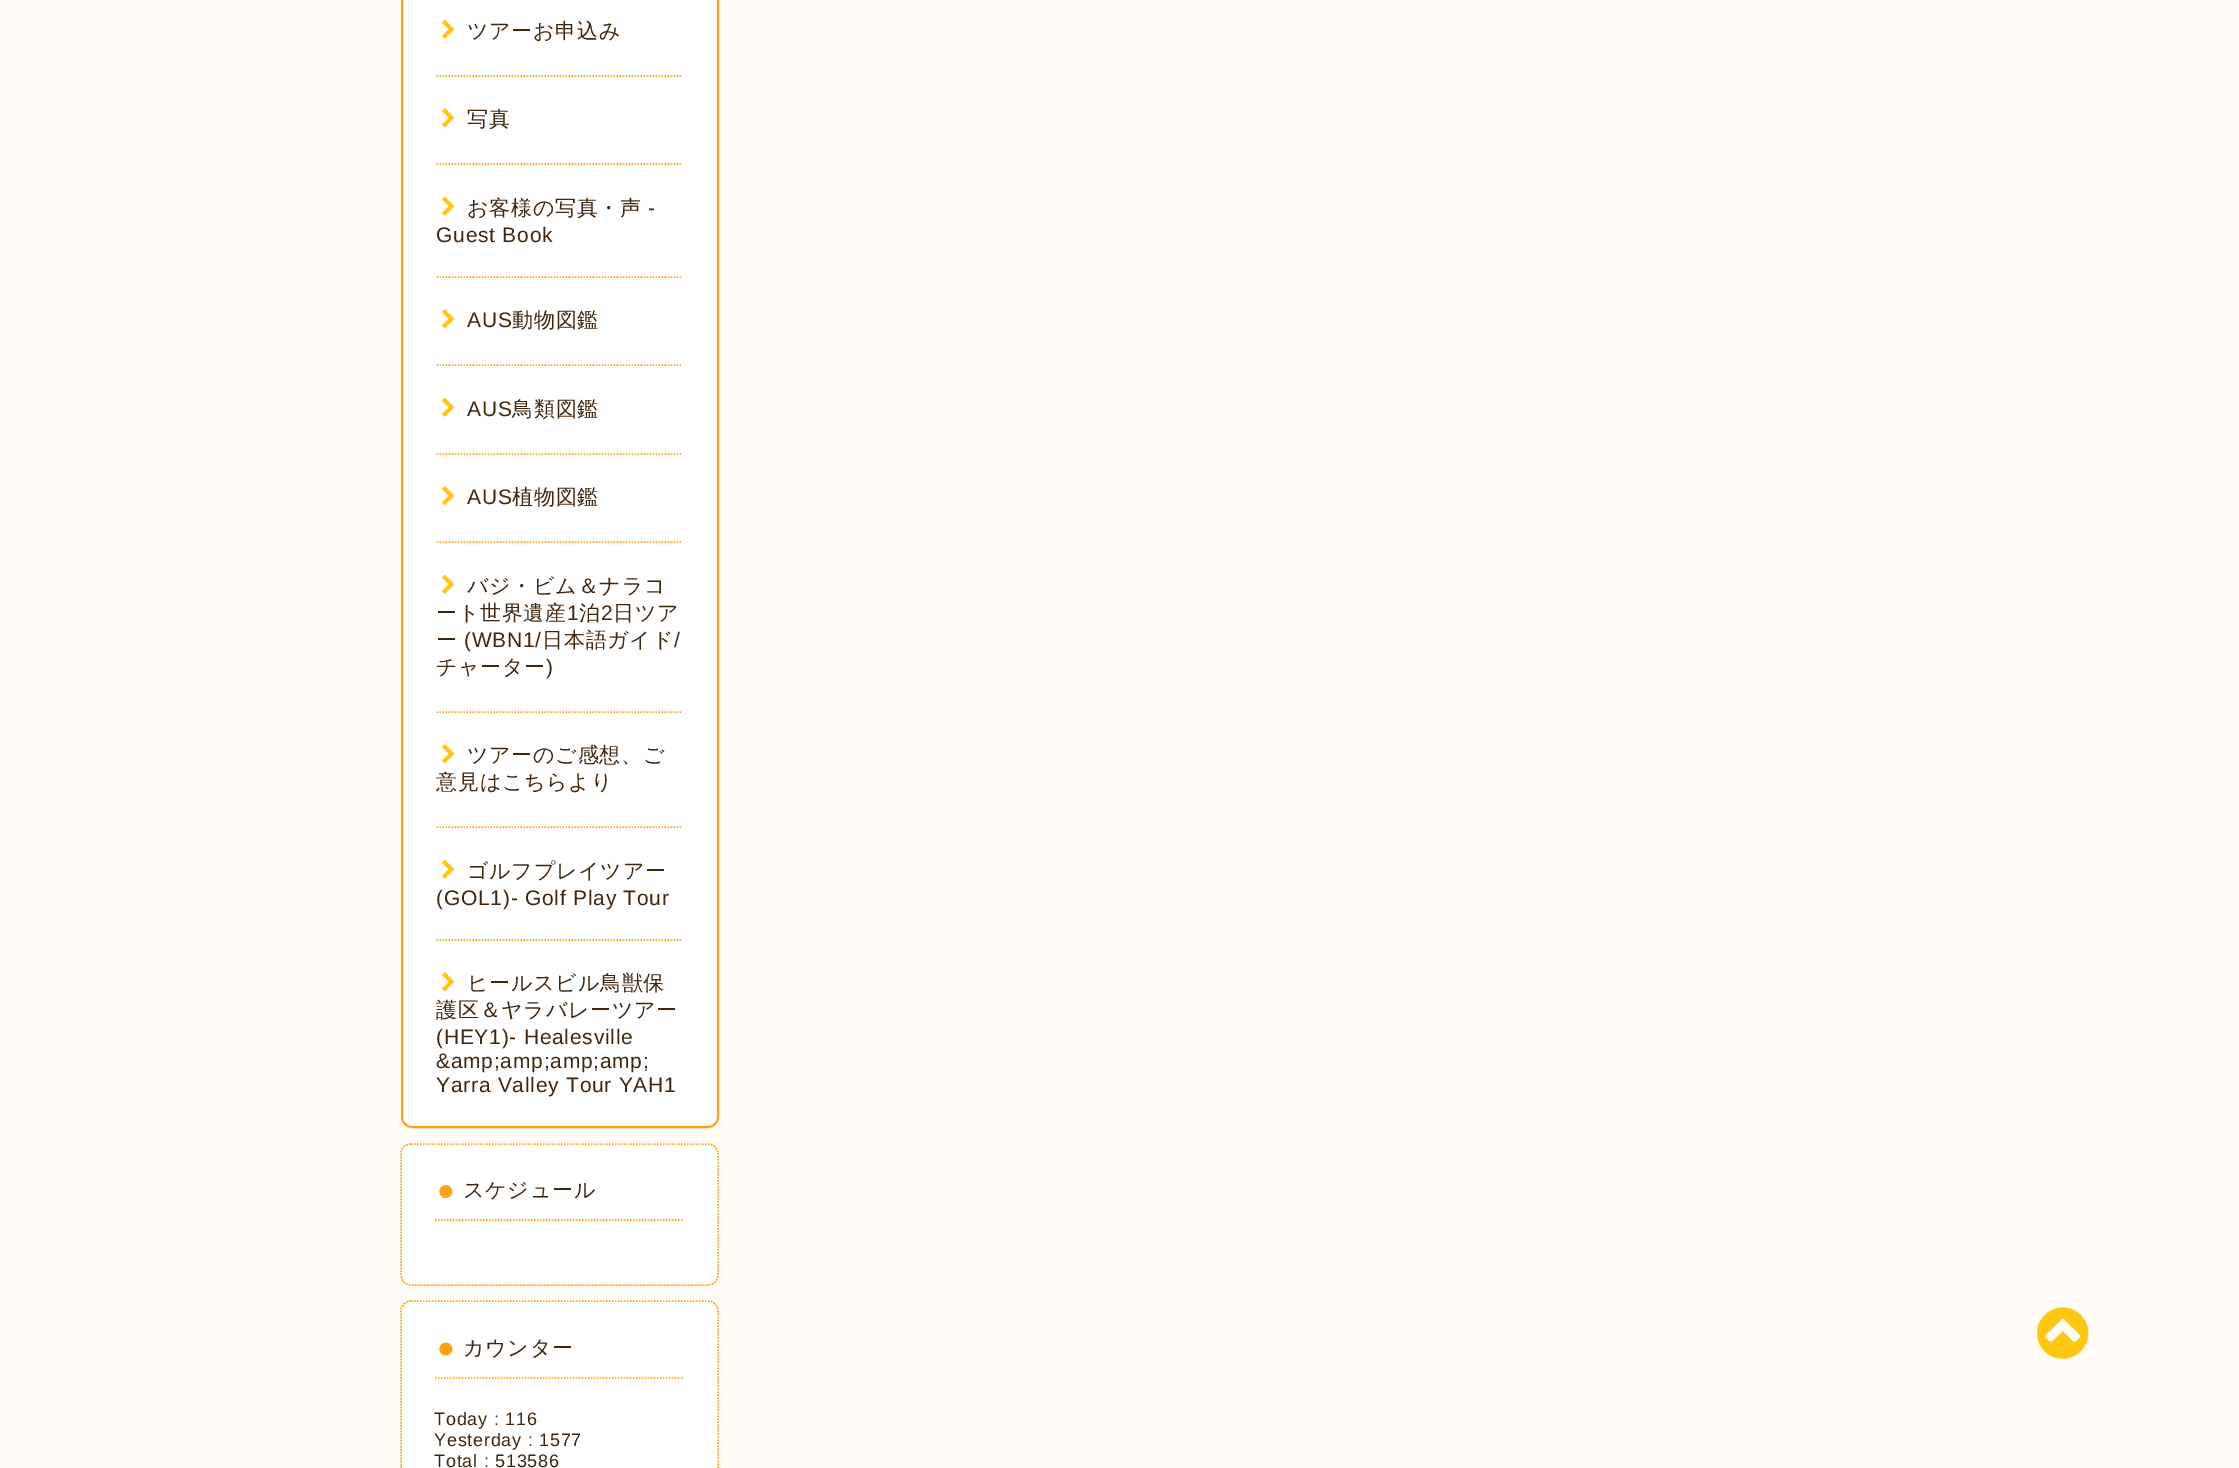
%!PS
<< /PageSize [2239 1468] >> setpagedevice
/m/moveto load def
/l/rlineto load def
/c/rcurveto load def
/z/closepath load def
/f/fill load def
/s/stroke load def
/q/gsave load def
/Q_/grestore load def
/w/setlinewidth load def
/C { dup -16 bitshift 255 div exch dup -8 bitshift 255 and 255 div exch 255 and 255 div setrgbcolor } def
/F { [ exch dup neg 0 0 3 -1 roll 0 0 ] selectfont } def
/R { rectfill } def
/Q { 5 dict begin { /r /h /w /y /x } { exch def } forall
  x r add y moveto x w add y 2 copy h add r arct x w add y h add x 1 index r arct
  x y h add x y r arct x y 2 copy exch w add exch r arct closepath end } def
/I { 5 dict begin { /h /w /y /x /name } { exch def } forall
  gsave x y translate w h scale
  w h 8 [w 0 0 h 0 0] name (r) file false 3 colorimage grestore end } def
0 1468 translate 1 -1 scale
4 setmiterlimit
16#FFFCF8 C
0 0 2239 1468 R
16#FFFFFF C
402 -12 316 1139 10 Q q f Q_
16#FFA21A C
2 w
s
1.5 w
[1.5 1.5] 0 setdash
436.5 76 m 246 0 l s
(1.rgb) 442 19 13 20 I
/WenQuanYiZenHei-Medium 21 F
16#3F260D C
467 38 m .75 0 (ツアーお申込み) ashow
16#FFA21A C
436.5 164 m 246 0 l s
(2.rgb) 442 108 13 20 I
16#3F260D C
467 126 m .75 0 (写真) ashow
16#FFA21A C
436.5 277 m 246 0 l s
(1.rgb) 442 196 13 20 I
16#3F260D C
467 215 m .75 0 (お客様の写真・声) ashow
/LiberationSans-Regular 21 F
648 215 m .75 0 (-) ashow
436 242 m .75 0 (Guest Book) ashow
16#FFA21A C
436.5 365 m 246 0 l s
(2.rgb) 442 309 13 20 I
16#3F260D C
467 327 m .75 0 (AUS) ashow
/WenQuanYiZenHei-Medium 21 F
512 327 m .75 0 (動物図鑑) ashow
16#FFA21A C
436.5 454 m 246 0 l s
(1.rgb) 442 397 13 20 I
/LiberationSans-Regular 21 F
16#3F260D C
467 416 m .75 0 (AUS) ashow
/WenQuanYiZenHei-Medium 21 F
512 416 m .75 0 (鳥類図鑑) ashow
16#FFA21A C
436.5 542 m 246 0 l s
(2.rgb) 442 486 13 20 I
/LiberationSans-Regular 21 F
16#3F260D C
467 504 m .75 0 (AUS) ashow
/WenQuanYiZenHei-Medium 21 F
512 504 m .75 0 (植物図鑑) ashow
16#FFA21A C
436.5 712 m 246 0 l s
(1.rgb) 442 574 13 20 I
16#3F260D C
467 593 m .75 0 (バジ・ビム＆ナラコ) ashow
436 620 m .75 0 (ート世界遺産) ashow
/LiberationSans-Regular 21 F
567 620 m .75 0 (1) ashow
/WenQuanYiZenHei-Medium 21 F
579 620 m .75 0 (泊) ashow
/LiberationSans-Regular 21 F
601 620 m .75 0 (2) ashow
/WenQuanYiZenHei-Medium 21 F
613 620 m .75 0 (日ツア) ashow
436 647 m .75 0 (ー) ashow
/LiberationSans-Regular 21 F
464 647 m .75 0 (\(WBN1/) ashow
/WenQuanYiZenHei-Medium 21 F
542 647 m .75 0 (日本語ガイド) ashow
/LiberationSans-Regular 21 F
674 647 m .75 0 (/) ashow
/WenQuanYiZenHei-Medium 21 F
436 674 m .75 0 (チャーター) ashow
/LiberationSans-Regular 21 F
546 674 m .75 0 (\)) ashow
16#FFA21A C
436.5 827 m 246 0 l s
(2.rgb) 442 744 13 20 I
/WenQuanYiZenHei-Medium 21 F
16#3F260D C
467 762 m .75 0 (ツアーのご感想、ご) ashow
436 789 m .75 0 (意見はこちらより) ashow
16#FFA21A C
436.5 940 m 246 0 l s
(1.rgb) 442 859 13 20 I
16#3F260D C
467 878 m .75 0 (ゴルフプレイツアー) ashow
/LiberationSans-Regular 21 F
436 905 m .75 0 (\(GOL1\)- Golf Play Tour) ashow
(2.rgb) 442 972 13 20 I
/WenQuanYiZenHei-Medium 21 F
467 990 m .75 0 (ヒールスビル鳥獣保) ashow
436 1017 m .75 0 (護区＆ヤラバレーツアー) ashow
/LiberationSans-Regular 21 F
436 1044 m .75 0 (\(HEY1\)- Healesville) ashow
436 1068 m .75 0 (&amp;amp;amp;amp;) ashow
436 1092 m .75 0 (Yarra Valley Tour YAH1) ashow
16#FFFFFF C
401 1143 318 143 11 Q f
16#FFA21A C
411 1144 m 297 0 l 5.5 0 10 4 10 9.5 c 0 121.5 l 0 5.5 -4.5 10 -10 10 c -297 0 l -5.5 0 -10 -4.5 -10 -10 c 0 -121.5 l 0 -5.5 4.5 -9.5 10 -9.5 c z s
435 1220 m 249 0 l s
451.5 1188.5 m 4 7 -7 13.5 -11 6.5 c -4.5 -7.5 6.5 -14 11 -6.5 c z f
/WenQuanYiZenHei-Medium 21 F
16#3F260D C
463 1197 m .75 0 (スケジュール) ashow
16#FFFFFF C
401 1301 318 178 11 Q f
16#FFA21A C
411 1301 m 297 0 l 5.5 0 10 4.5 10 10 c 0 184.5 l 0 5.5 -4.5 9.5 -10 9.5 c -297 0 l -5.5 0 -10 -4 -10 -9.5 c 0 -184.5 l 0 -5.5 4.5 -10 10 -10 c z s
435 1378 m 249 0 l s
451.5 1346 m 4 7 -7 13.5 -11 6.5 c -4.5 -7.5 6.5 -14 11 -6.5 c z f
16#3F260D C
463 1355 m .75 0 (カウンター) ashow
/LiberationSans-Regular 18 F
434 1425 m .75 0 (Today : 116) ashow
434 1446 m .75 0 (Yesterday : 1577) ashow
434 1467 m .75 0 (Total : 513586) ashow
(3.rgb) 2037 1307 52 52 I
showpage
